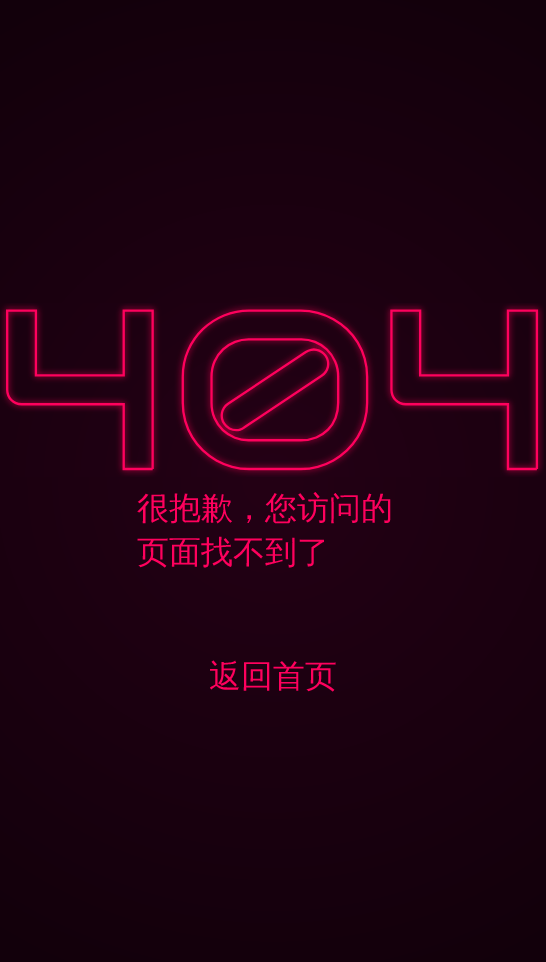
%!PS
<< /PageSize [546 962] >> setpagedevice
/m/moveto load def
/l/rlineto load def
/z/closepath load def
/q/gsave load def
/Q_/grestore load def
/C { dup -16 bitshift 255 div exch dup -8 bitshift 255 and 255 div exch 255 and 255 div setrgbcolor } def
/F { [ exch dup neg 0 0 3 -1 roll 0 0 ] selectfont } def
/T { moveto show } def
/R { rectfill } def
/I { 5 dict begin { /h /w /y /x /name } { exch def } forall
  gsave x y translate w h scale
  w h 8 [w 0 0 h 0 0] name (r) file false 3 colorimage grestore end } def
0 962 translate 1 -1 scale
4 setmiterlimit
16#FFFFFF C
0 0 546 962 R
q 0 0 m 546 0 l 0 962 l -546 0 l z clip newpath 273 481 translate 553 553 scale
<< /ShadingType 3 /ColorSpace /DeviceRGB /Coords [0 0 0 0 0 1] /Extend [true true] /Function << /FunctionType 2 /Domain [0 1] /C0 [.141 0 .082] /C1 [.071 0 .043] /N 1 >> >> shfill Q_
(2.rgb) 3 307 538 167 I
(1.rgb) 0 303 544 174 I
/WenQuanYiZenHei-Medium 32 F
16#FF005D C
(很抱歉，您访问的) 137 519 T
(页面找不到了) 137 563 T
(返回首页) 209 687 T
showpage
